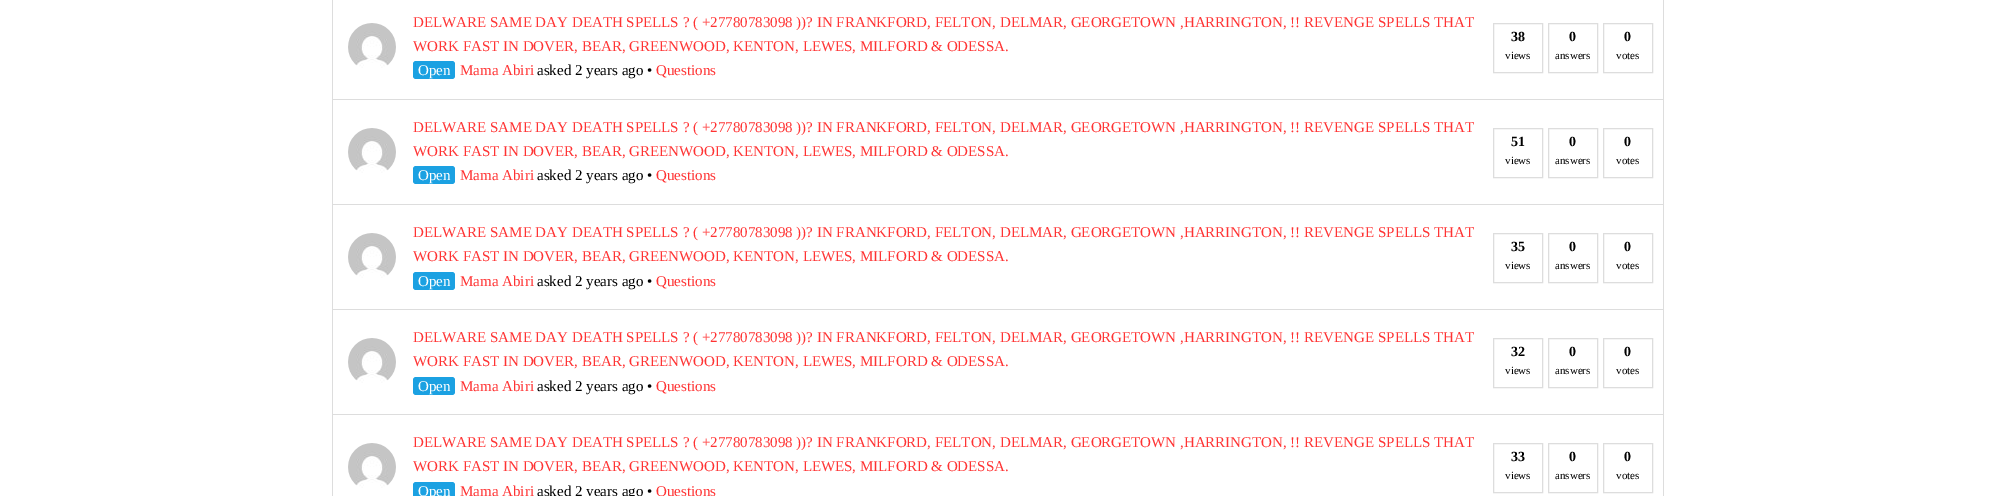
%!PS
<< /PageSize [1995 496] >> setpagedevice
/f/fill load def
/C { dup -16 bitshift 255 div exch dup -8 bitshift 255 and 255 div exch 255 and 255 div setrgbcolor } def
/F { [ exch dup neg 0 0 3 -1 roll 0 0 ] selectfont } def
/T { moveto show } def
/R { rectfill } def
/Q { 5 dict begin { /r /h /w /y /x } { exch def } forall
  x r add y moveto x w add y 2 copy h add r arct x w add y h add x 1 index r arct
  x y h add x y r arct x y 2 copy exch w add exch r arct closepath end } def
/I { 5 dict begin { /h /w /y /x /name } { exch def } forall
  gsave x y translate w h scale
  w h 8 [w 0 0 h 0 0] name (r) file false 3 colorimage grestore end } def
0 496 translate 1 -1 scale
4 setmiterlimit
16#FFFFFF C
0 0 1995 496 R
16#DDDDDD C
1663 0 1 496 R
332 99 1332 1 R
332 0 1 100 R
/LiberationSerif-Regular 15 F
16#FF3333 C
(DELWARE SAME DAY DEATH SPELLS ? \( +27780783098 \)\)? IN FRANKFORD, FELTON, DELMAR, GEORGETOWN ,HARRINGTON, !! REVENGE SPELLS THAT) 413 27 T
(WORK FAST IN DOVER, BEAR, GREENWOOD, KENTON, LEWES, MILFORD & ODESSA.) 413 51 T
16#DDDDDD C
1493.5 23.5 49 49 rectstroke
/LiberationSerif-Bold 14 F
16#000000 C
(38) 1511 41 T
/LiberationSerif-Regular 11 F
(views) 1505 59 T
16#DDDDDD C
1548.5 23.5 49 49 rectstroke
/LiberationSerif-Bold 14 F
16#000000 C
(0) 1569 41 T
/LiberationSerif-Regular 11 F
(answers) 1555 59 T
16#DDDDDD C
1603.5 23.5 49 49 rectstroke
/LiberationSerif-Bold 14 F
16#000000 C
(0) 1624 41 T
/LiberationSerif-Regular 11 F
(votes) 1616 59 T
16#1BA1E2 C
413 61 42 18 3 Q f
/LiberationSerif-Regular 15 F
16#FFFFFF C
(Open) 418 75 T
(1.rgb) 348 23 48 45 I
16#FF3333 C
(Mama Abiri) 460 75 T
16#000000 C
(asked 2 years ago •) 537 75 T
16#FF3333 C
(Questions) 656 75 T
16#DDDDDD C
332 204 1332 1 R
332 100 1 105 R
16#FF3333 C
(DELWARE SAME DAY DEATH SPELLS ? \( +27780783098 \)\)? IN FRANKFORD, FELTON, DELMAR, GEORGETOWN ,HARRINGTON, !! REVENGE SPELLS THAT) 413 132 T
(WORK FAST IN DOVER, BEAR, GREENWOOD, KENTON, LEWES, MILFORD & ODESSA.) 413 156 T
16#DDDDDD C
1493.5 128.5 49 49 rectstroke
/LiberationSerif-Bold 14 F
16#000000 C
(51) 1511 146 T
/LiberationSerif-Regular 11 F
(views) 1505 164 T
16#DDDDDD C
1548.5 128.5 49 49 rectstroke
/LiberationSerif-Bold 14 F
16#000000 C
(0) 1569 146 T
/LiberationSerif-Regular 11 F
(answers) 1555 164 T
16#DDDDDD C
1603.5 128.5 49 49 rectstroke
/LiberationSerif-Bold 14 F
16#000000 C
(0) 1624 146 T
/LiberationSerif-Regular 11 F
(votes) 1616 164 T
16#1BA1E2 C
413 166 42 18 3 Q f
/LiberationSerif-Regular 15 F
16#FFFFFF C
(Open) 418 180 T
(2.rgb) 348 128 48 45 I
16#FF3333 C
(Mama Abiri) 460 180 T
16#000000 C
(asked 2 years ago •) 537 180 T
16#FF3333 C
(Questions) 656 180 T
16#DDDDDD C
332 309 1332 1 R
332 205 1 105 R
16#FF3333 C
(DELWARE SAME DAY DEATH SPELLS ? \( +27780783098 \)\)? IN FRANKFORD, FELTON, DELMAR, GEORGETOWN ,HARRINGTON, !! REVENGE SPELLS THAT) 413 237 T
(WORK FAST IN DOVER, BEAR, GREENWOOD, KENTON, LEWES, MILFORD & ODESSA.) 413 261 T
16#DDDDDD C
1493.5 233.5 49 49 rectstroke
/LiberationSerif-Bold 14 F
16#000000 C
(35) 1511 251 T
/LiberationSerif-Regular 11 F
(views) 1505 269 T
16#DDDDDD C
1548.5 233.5 49 49 rectstroke
/LiberationSerif-Bold 14 F
16#000000 C
(0) 1569 251 T
/LiberationSerif-Regular 11 F
(answers) 1555 269 T
16#DDDDDD C
1603.5 233.5 49 49 rectstroke
/LiberationSerif-Bold 14 F
16#000000 C
(0) 1624 251 T
/LiberationSerif-Regular 11 F
(votes) 1616 269 T
16#1BA1E2 C
413 272 42 18 3 Q f
/LiberationSerif-Regular 15 F
16#FFFFFF C
(Open) 418 286 T
(2.rgb) 348 233 48 45 I
16#FF3333 C
(Mama Abiri) 460 286 T
16#000000 C
(asked 2 years ago •) 537 286 T
16#FF3333 C
(Questions) 656 286 T
16#DDDDDD C
332 414 1332 1 R
332 310 1 186 R
16#FF3333 C
(DELWARE SAME DAY DEATH SPELLS ? \( +27780783098 \)\)? IN FRANKFORD, FELTON, DELMAR, GEORGETOWN ,HARRINGTON, !! REVENGE SPELLS THAT) 413 342 T
(WORK FAST IN DOVER, BEAR, GREENWOOD, KENTON, LEWES, MILFORD & ODESSA.) 413 366 T
16#DDDDDD C
1493.5 338.5 49 49 rectstroke
/LiberationSerif-Bold 14 F
16#000000 C
(32) 1511 356 T
/LiberationSerif-Regular 11 F
(views) 1505 374 T
16#DDDDDD C
1548.5 338.5 49 49 rectstroke
/LiberationSerif-Bold 14 F
16#000000 C
(0) 1569 356 T
/LiberationSerif-Regular 11 F
(answers) 1555 374 T
16#DDDDDD C
1603.5 338.5 49 49 rectstroke
/LiberationSerif-Bold 14 F
16#000000 C
(0) 1624 356 T
/LiberationSerif-Regular 11 F
(votes) 1616 374 T
16#1BA1E2 C
413 377 42 18 3 Q f
/LiberationSerif-Regular 15 F
16#FFFFFF C
(Open) 418 391 T
(2.rgb) 348 338 48 45 I
16#FF3333 C
(Mama Abiri) 460 391 T
16#000000 C
(asked 2 years ago •) 537 391 T
16#FF3333 C
(Questions) 656 391 T
(DELWARE SAME DAY DEATH SPELLS ? \( +27780783098 \)\)? IN FRANKFORD, FELTON, DELMAR, GEORGETOWN ,HARRINGTON, !! REVENGE SPELLS THAT) 413 447 T
(WORK FAST IN DOVER, BEAR, GREENWOOD, KENTON, LEWES, MILFORD & ODESSA.) 413 471 T
16#DDDDDD C
1493.5 443.5 49 49 rectstroke
/LiberationSerif-Bold 14 F
16#000000 C
(33) 1511 461 T
/LiberationSerif-Regular 11 F
(views) 1505 479 T
16#DDDDDD C
1548.5 443.5 49 49 rectstroke
/LiberationSerif-Bold 14 F
16#000000 C
(0) 1569 461 T
/LiberationSerif-Regular 11 F
(answers) 1555 479 T
16#DDDDDD C
1603.5 443.5 49 49 rectstroke
/LiberationSerif-Bold 14 F
16#000000 C
(0) 1624 461 T
/LiberationSerif-Regular 11 F
(votes) 1616 479 T
16#1BA1E2 C
413 482 42 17 3 Q f
/LiberationSerif-Regular 15 F
16#FFFFFF C
(Open) 418 496 T
(2.rgb) 348 443 48 45 I
16#FF3333 C
(Mama Abiri) 460 496 T
16#000000 C
(asked 2 years ago •) 537 496 T
16#FF3333 C
(Questions) 656 496 T
showpage
